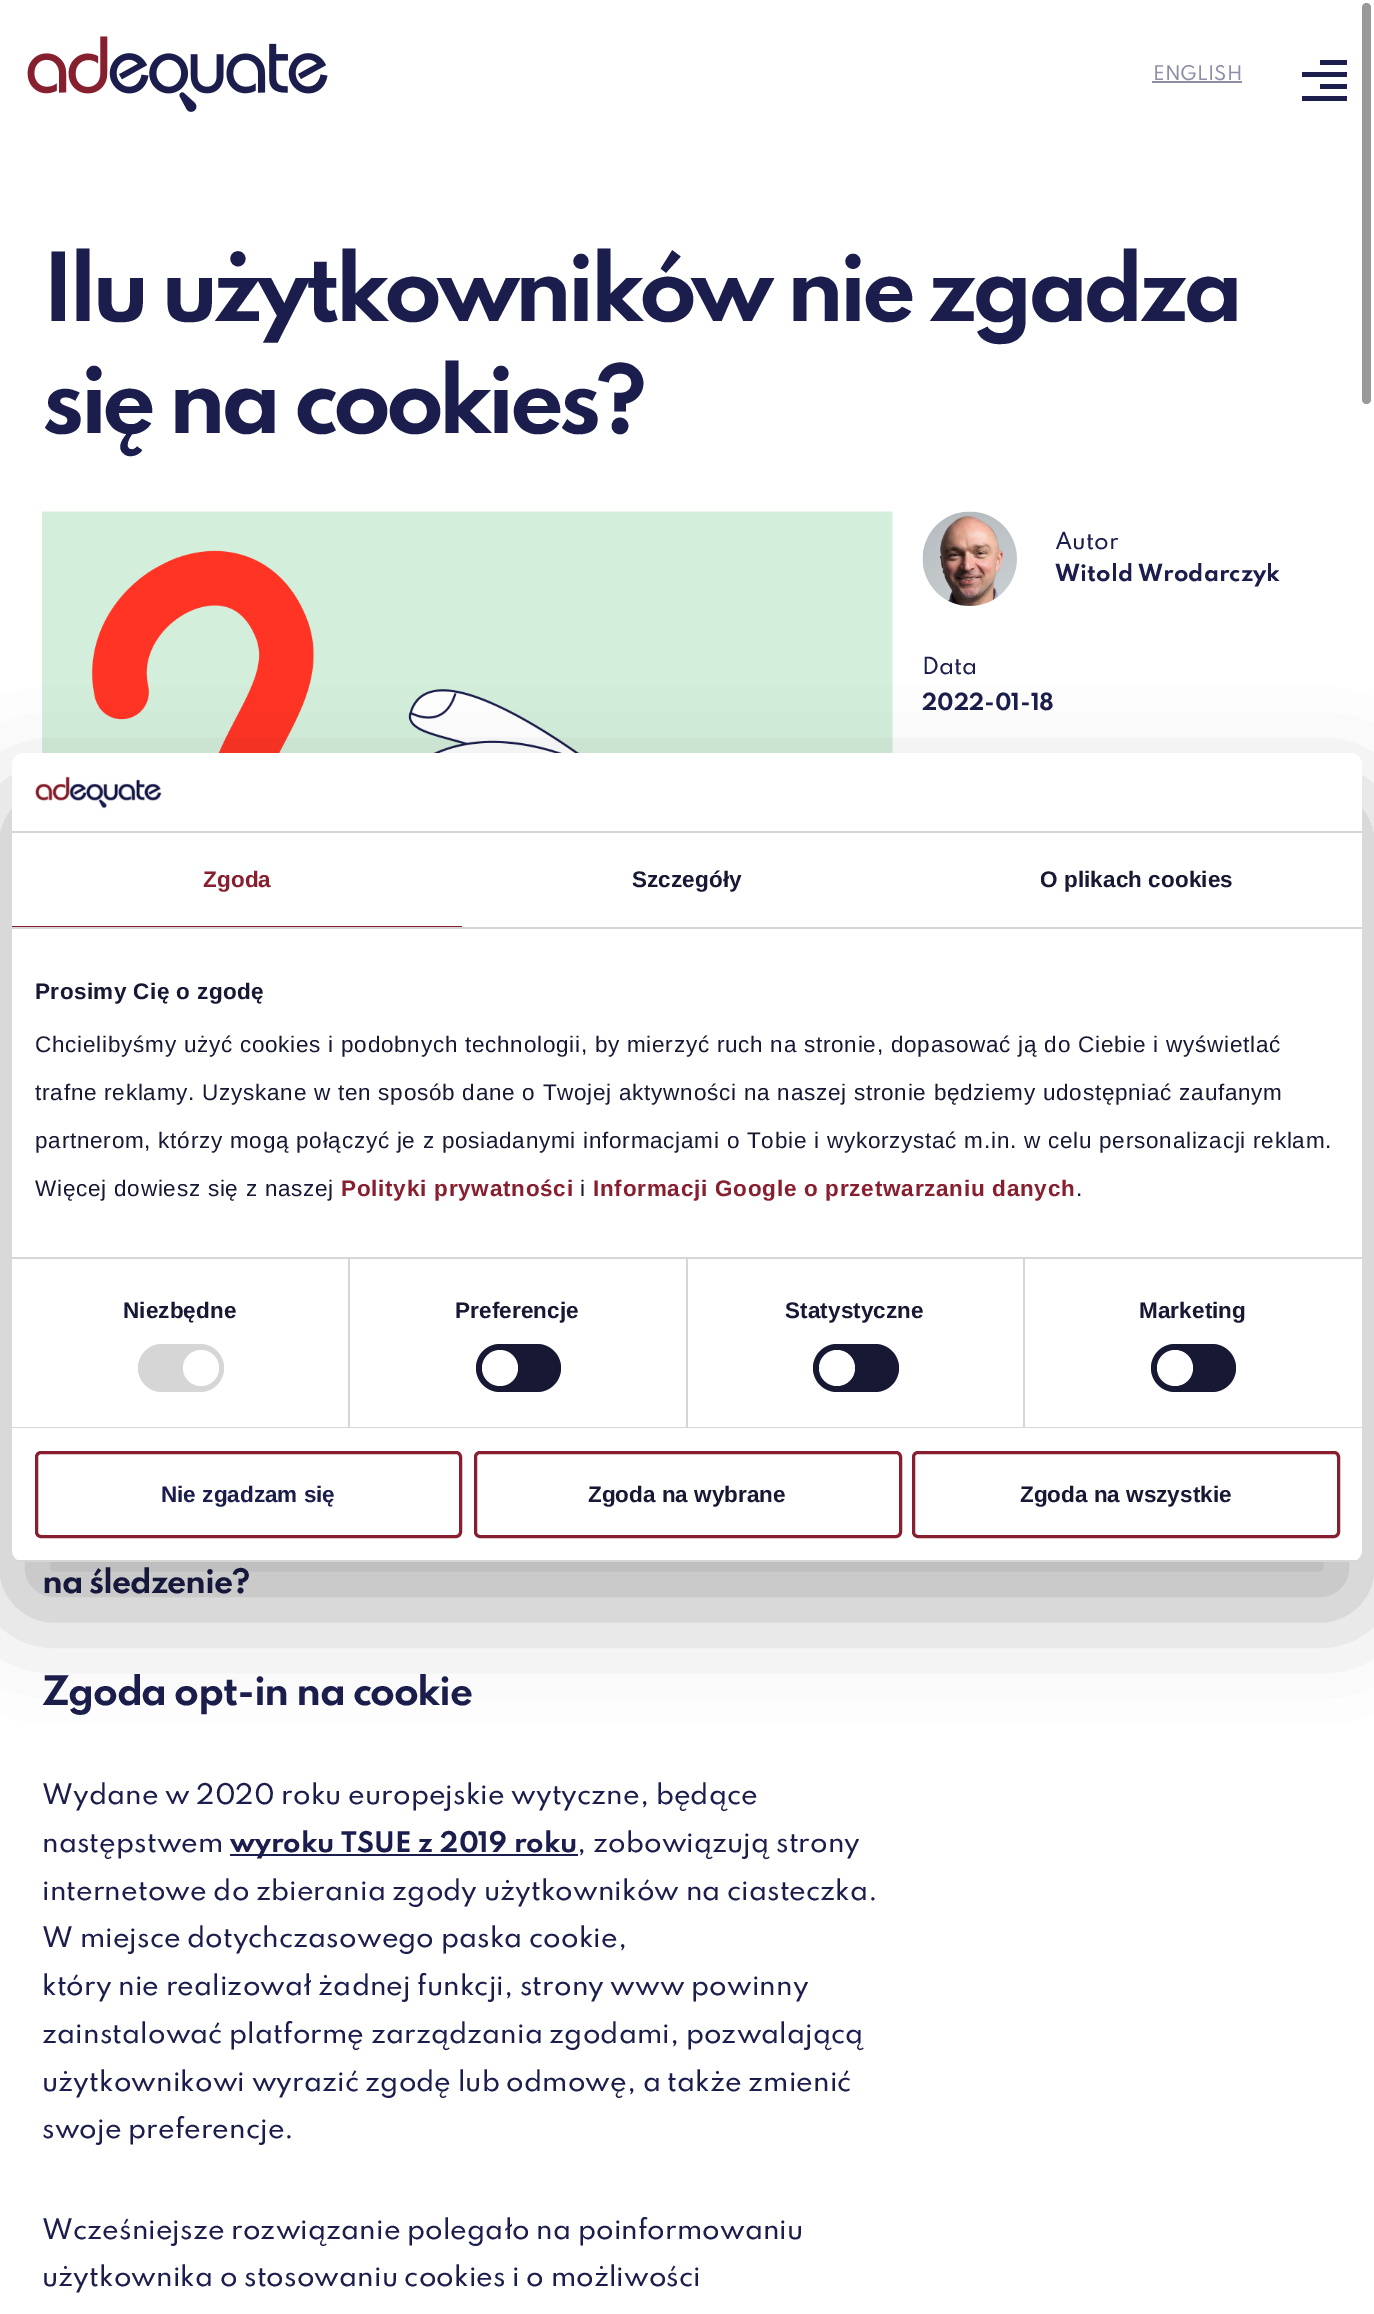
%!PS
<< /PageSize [1374 2314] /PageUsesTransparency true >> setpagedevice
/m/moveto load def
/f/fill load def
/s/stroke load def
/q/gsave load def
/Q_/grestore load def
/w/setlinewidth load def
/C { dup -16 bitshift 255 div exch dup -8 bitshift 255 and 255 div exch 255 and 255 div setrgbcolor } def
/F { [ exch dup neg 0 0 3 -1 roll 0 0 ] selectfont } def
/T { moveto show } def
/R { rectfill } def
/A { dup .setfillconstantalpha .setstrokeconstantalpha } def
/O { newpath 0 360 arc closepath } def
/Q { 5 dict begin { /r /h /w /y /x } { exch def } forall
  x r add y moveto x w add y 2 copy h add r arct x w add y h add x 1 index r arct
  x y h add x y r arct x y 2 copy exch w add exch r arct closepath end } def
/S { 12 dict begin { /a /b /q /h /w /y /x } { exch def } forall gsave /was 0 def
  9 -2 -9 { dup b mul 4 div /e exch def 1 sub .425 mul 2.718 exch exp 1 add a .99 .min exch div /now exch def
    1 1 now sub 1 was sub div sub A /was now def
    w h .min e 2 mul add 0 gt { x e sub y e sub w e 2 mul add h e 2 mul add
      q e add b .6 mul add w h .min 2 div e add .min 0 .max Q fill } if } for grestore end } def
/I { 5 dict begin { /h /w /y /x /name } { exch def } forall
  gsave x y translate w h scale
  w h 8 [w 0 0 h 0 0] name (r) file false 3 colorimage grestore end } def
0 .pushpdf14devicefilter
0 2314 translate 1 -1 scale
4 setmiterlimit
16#FFFFFF C
0 0 1374 2314 R
(1.rgb) 27 36 301 76 I
/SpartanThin-Medium 18 F
16#8D8FA6 C
(ENGLISH) 1153 80 T
1152 81 90 2 R
16#1B1E4C C
1320 60 27 5 R
1302 72 45 5 R
1320 84 27 5 R
1302 96 45 5 R
/SpartanThin-Bold 84.25 F
42 321 m -5.6 0 (Ilu użytkowników nie zgadza) ashow
42 433 m -5.6 0 (się na cookies?) ashow
/SpartanThin-Medium 21 F
(Autor) 1055 549 T
(2.rgb) 922 511 95 95 I
/SpartanThin-Bold 21 F
(Witold Wrodarczyk) 1055 581 T
/SpartanThin-Medium 21 F
(Data) 922 674 T
/SpartanThin-Bold 21 F
(2022-01-18) 922 710 T
(3.rgb) 42 511 851 242 I
/SpartanThin-Bold 30 F
42 1593 m -1.25 0 (na śledzenie?) ashow
/SpartanThin-Bold 36 F
42 1705 m -1.4 0 (Zgoda opt-in na cookie) ashow
/SpartanThin-Medium 25.25 F
(Wydane w 2020 roku europejskie wytyczne, będące) 42 1804 T
(następstwem) 42 1852 T
230 1854 348 2 R
/SpartanThin-Bold 25.25 F
(wyroku TSUE z 2019 roku) 230 1852 T
/SpartanThin-Medium 25.25 F
(, zobowiązują strony) 577 1852 T
(internetowe do zbierania zgody użytkowników na ciasteczka.) 42 1900 T
(W miejsce dotychczasowego paska cookie,) 42 1947 T
(który nie realizował żadnej funkcji, strony www powinny) 42 1995 T
(zainstalować platformę zarządzania zgodami, pozwalającą) 42 2043 T
(użytkownikowi wyrazić zgodę lub odmowę, a także zmienić) 42 2091 T
(swoje preferencje.) 42 2138 T
(Wcześniejsze rozwiązanie polegało na poinformowaniu) 42 2239 T
(użytkownika o stosowaniu cookies i o możliwości) 42 2286 T
16#999999 C
1362 3 9 401 4.5 Q f
16#000000 C
12 801 1350 809 12 51 .3 S
16#FFFFFF C
12 753 1350 809 12 Q f
16#D6D6D6 C
12 831 1350 2 R
(4.rgb) 35 776 127 33 I
12 927 1350 2 R
16#881F2F C
12 926 450 1 R
/LiberationSans-Bold 22.5 F
203 887 m .1 0 (Zgoda) ashow
16#161834 C
632 887 m .1 0 (Szczegóły) ashow
1040 887 m .1 0 (O plikach cookies) ashow
16#D6D6D6 C
12 1257 1350 2 R
16#161834 C
35 999 m .4 0 (Prosimy Cię o zgodę) ashow
/LiberationSans-Regular 22.5 F
35 1052 m .75 0 (Chcielibyśmy użyć cookies i podobnych technologii, by mierzyć ruch na stronie, dopasować ją do Ciebie i wyświetlać) ashow
35 1100 m .75 0 (trafne reklamy. Uzyskane w ten sposób dane o Twojej aktywności na naszej stronie będziemy udostępniać zaufanym) ashow
35 1148 m .75 0 (partnerom, którzy mogą połączyć je z posiadanymi informacjami o Tobie i wykorzystać m.in. w celu personalizacji reklam.) ashow
35 1196 m .75 0 (Więcej dowiesz się z naszej) ashow
/LiberationSans-Bold 22.5 F
16#881F2F C
341 1196 m .75 0 (Polityki prywatności) ashow
/LiberationSans-Regular 22.5 F
16#161834 C
580 1196 m .75 0 (i) ashow
/LiberationSans-Bold 22.5 F
16#881F2F C
593 1196 m .75 0 (Informacji Google o przetwarzaniu danych) ashow
/LiberationSans-Regular 22.5 F
16#161834 C
1076 1196 m .75 0 (.) ashow
16#D6D6D6 C
12 1427 1350 1 R
348 1259 2 168 R
/LiberationSans-Bold 22.5 F
16#161834 C
123 1318 m .1 0 (Niezbędne) ashow
16#D6D6D6 C
138 1344 86 48 24 Q f
16#FFFFFF C
201 1368 18 O f
16#D6D6D6 C
686 1259 2 168 R
16#161834 C
455 1318 m .1 0 (Preferencje) ashow
476 1344 85 48 24 Q f
16#FFFFFF C
500 1368 18 O f
16#D6D6D6 C
1023 1259 2 168 R
16#161834 C
785 1318 m .1 0 (Statystyczne) ashow
813 1344 86 48 24 Q f
16#FFFFFF C
837 1368 18 O f
16#161834 C
1139 1318 m .1 0 (Marketing) ashow
1151 1344 85 48 24 Q f
16#FFFFFF C
1175 1368 18 O f
q
12 753 1350 809 12 Q clip newpath
16#D6D6D6 C
12 1560 1350 2 R
Q_
16#881F2F C
3 w
36.5 1452.5 424 84 4.5 Q s
16#1B1E4C C
(Nie zgadzam się) 161 1502 T
16#881F2F C
475.5 1452.5 425 84 4.5 Q s
16#161834 C
(Zgoda na wybrane) 588 1502 T
16#881F2F C
913.5 1452.5 425 84 4.5 Q s
16#161834 C
(Zgoda na wszystkie) 1020 1502 T
.poppdf14devicefilter showpage
